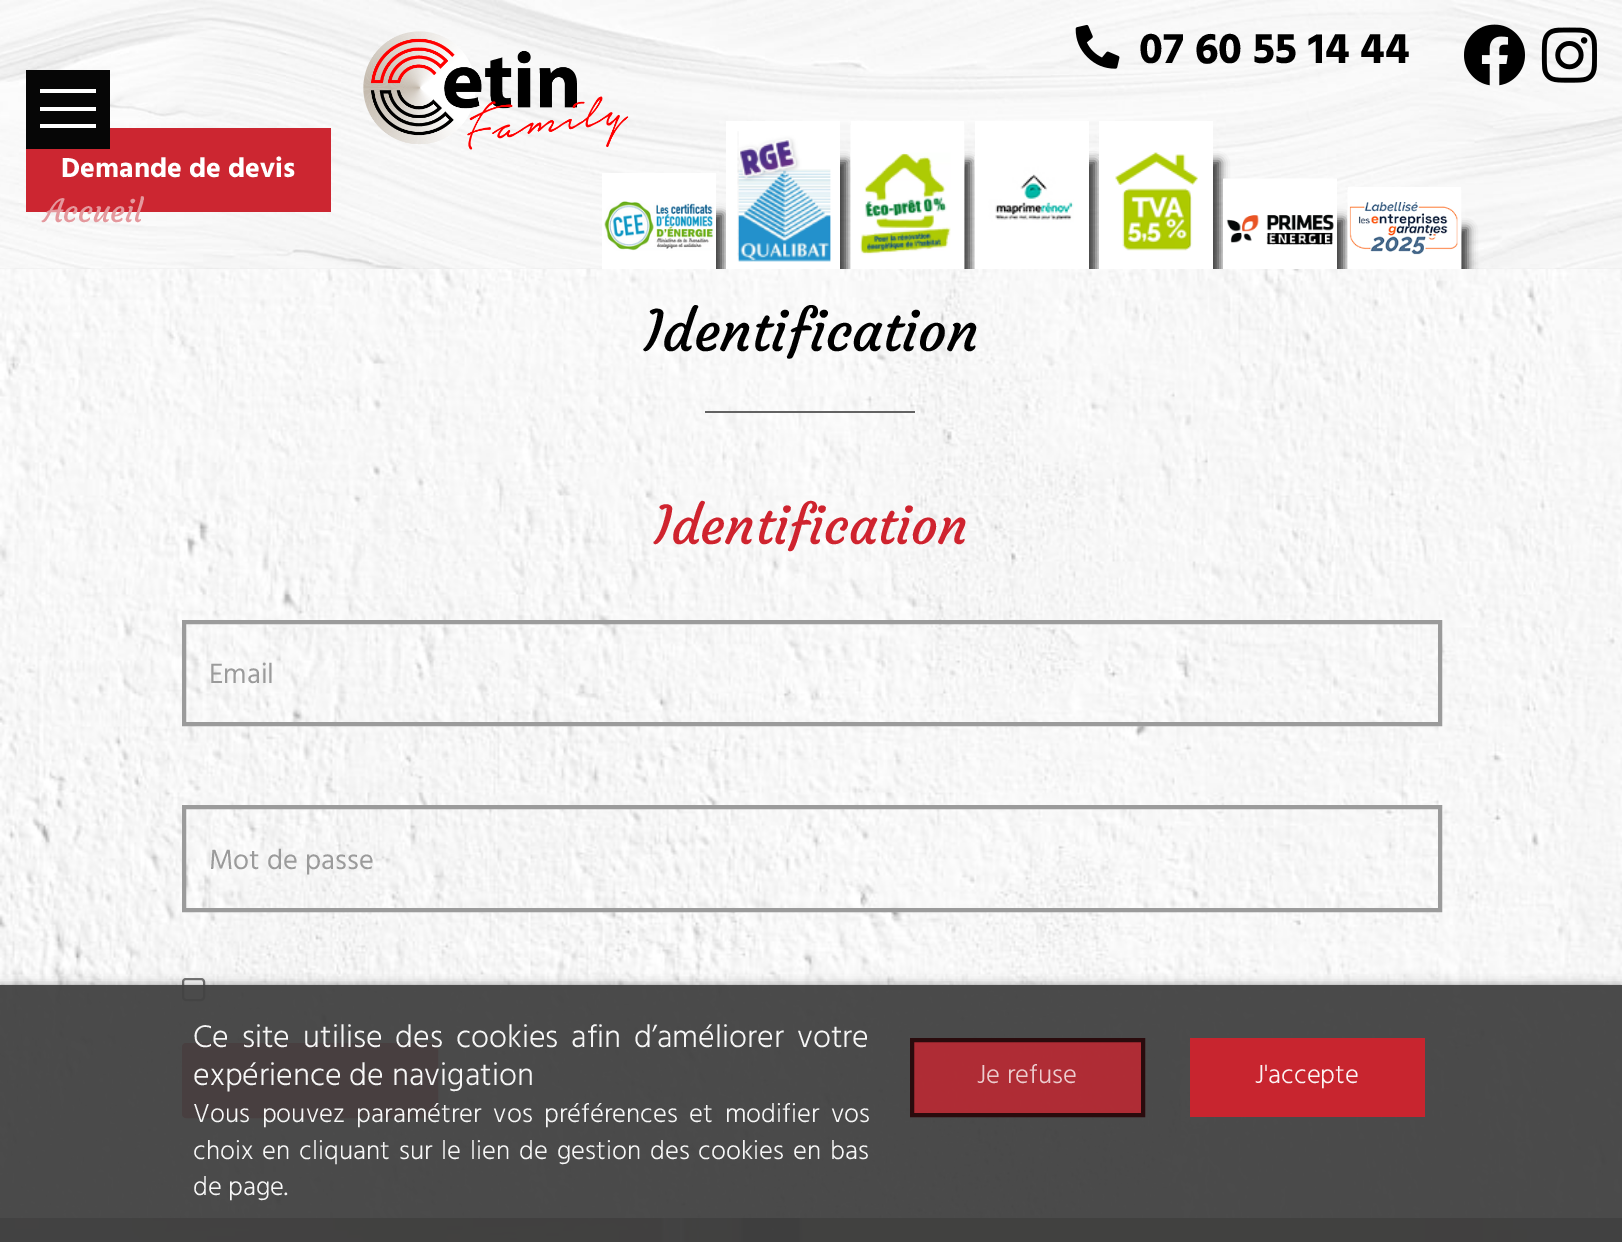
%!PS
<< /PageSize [1622 1242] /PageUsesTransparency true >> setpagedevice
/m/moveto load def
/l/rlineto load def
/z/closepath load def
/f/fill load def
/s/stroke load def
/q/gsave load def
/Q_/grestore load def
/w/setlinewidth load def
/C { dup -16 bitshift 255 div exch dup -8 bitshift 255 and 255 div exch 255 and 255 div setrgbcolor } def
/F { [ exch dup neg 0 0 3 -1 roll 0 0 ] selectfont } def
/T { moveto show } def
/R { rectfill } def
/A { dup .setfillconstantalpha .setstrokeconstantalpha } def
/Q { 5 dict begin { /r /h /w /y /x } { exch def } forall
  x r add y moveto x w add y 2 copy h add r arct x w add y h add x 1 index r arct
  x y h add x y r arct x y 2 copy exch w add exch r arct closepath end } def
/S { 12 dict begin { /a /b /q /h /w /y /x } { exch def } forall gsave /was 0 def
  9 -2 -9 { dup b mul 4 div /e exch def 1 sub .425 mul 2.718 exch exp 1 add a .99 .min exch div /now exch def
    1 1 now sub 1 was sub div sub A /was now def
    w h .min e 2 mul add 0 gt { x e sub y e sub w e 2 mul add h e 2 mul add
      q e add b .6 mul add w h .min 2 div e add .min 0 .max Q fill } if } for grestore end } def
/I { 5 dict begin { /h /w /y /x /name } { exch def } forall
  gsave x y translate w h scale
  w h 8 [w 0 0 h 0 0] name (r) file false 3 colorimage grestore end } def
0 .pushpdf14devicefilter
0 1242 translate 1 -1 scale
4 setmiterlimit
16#FFFFFF C
0 0 1622 1242 R
(1.rgb) 0 0 1622 269 I
(2.rgb) 363 31 266 119 I
(3.rgb) 1075 24 45 45 I
/Hind-Bold 43.75 F
16#000000 C
(07 60 55 14 44) 1139 63 T
630 214 93 75 0 4.5 .74 S
16#FFFFFF C
602 173 114 96 R
(4.rgb) 604 201 110 50 I
16#000000 C
754 161 93 128 0 4.5 .74 S
16#FFFFFF C
726 121 114 148 R
(5.rgb) 737 131 94 131 I
16#000000 C
879 161 92 128 0 4.5 .74 S
16#FFFFFF C
851 121 113 4 R
(6.rgb) 850 125 115 144 I
16#000000 C
1003 161 93 128 0 4.5 .74 S
16#FFFFFF C
975 121 114 148 R
(7.rgb) 974 156 100 113 I
16#000000 C
1127 161 93 128 0 4.5 .74 S
16#FFFFFF C
1099 121 114 148 R
(8.rgb) 1115 152 83 99 I
16#000000 C
1251 219 93 70 0 4.5 .74 S
16#FFFFFF C
1223 179 114 90 R
(9.rgb) 1223 178 114 67 I
16#000000 C
1376 228 92 61 0 4.5 .74 S
16#FFFFFF C
1348 187 113 3 R
(10.rgb) 1347 190 115 79 I
(11.rgb) 1464 24 61 62 I
(12.rgb) 1541 27 56 56 I
16#CC2631 C
26 128 305 84 R
/Hind-Bold 28 F
16#FFFFFF C
(Demande de devis) 61 177 T
16#060606 C
26 70 84 79 R
16#FFFFFF C
40 124 56 4 R
40 107 56 4 R
40 89 56 4 R
/Courgette-Regular 31.5 F
16#E4989D C
(Accueil) 44 222 T
(13.rgb) 0 269 1622 949 I
/Courgette-Regular 56 F
16#000000 C
(Identification) 644 351 T
16#626262 C
705 411 210 2 R
/Courgette-Regular 52.5 F
16#CF232E C
(Identification) 654 544 T
16#9B9B9B C
4 w
184 622 1256 102 rectstroke
/Hind-Regular 28.5 F
(Email) 209 683 T
184 807 1256 103 rectstroke
(Mot de passe) 209 869 T
16#FFFFFF C
183 979 21 21 3 Q q f Q_
16#767676 C
2 w
s
16#CF232E C
183 1044 254 73 3 Q q f Q_
s
(14.rgb) 0 1218 1622 24 I
q
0 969 m 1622 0 l 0 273 l -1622 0 l z 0 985 m 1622 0 l 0 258 l -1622 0 l z eoclip newpath
16#000000 C
0 985 1622 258 0 5 .38 S
Q_
0.95 A
16#414141 C
0 985 1622 257 R
/Hind-Light 32.1 F
1 A
16#F6F6F6 C
193 1047 m 5 0 32 (Ce site utilise des cookies afin d’améliorer votre) widthshow
(expérience de navigation) 193 1085 T
/Hind-Light 26.75 F
193 1122 m 5.25 0 32 (Vous pouvez paramétrer vos préférences et modifier vos) widthshow
193 1159 m 2.6 0 32 (choix en cliquant sur le lien de gestion des cookies en bas) widthshow
(de page.) 193 1195 T
0.76 A
16#CF232E C
912 1040 m 231 0 l 0 75 l -231 0 l z f
1 A
16#2A0B0D C
4 w
912 1040 m 231 0 l 0 75 l -231 0 l z s
16#ECCCCE C
(Je refuse) 977 1083 T
16#C8252F C
1190 1038 235 79 R
16#FCF4F5 C
(J'accepte) 1255 1083 T
.poppdf14devicefilter showpage
